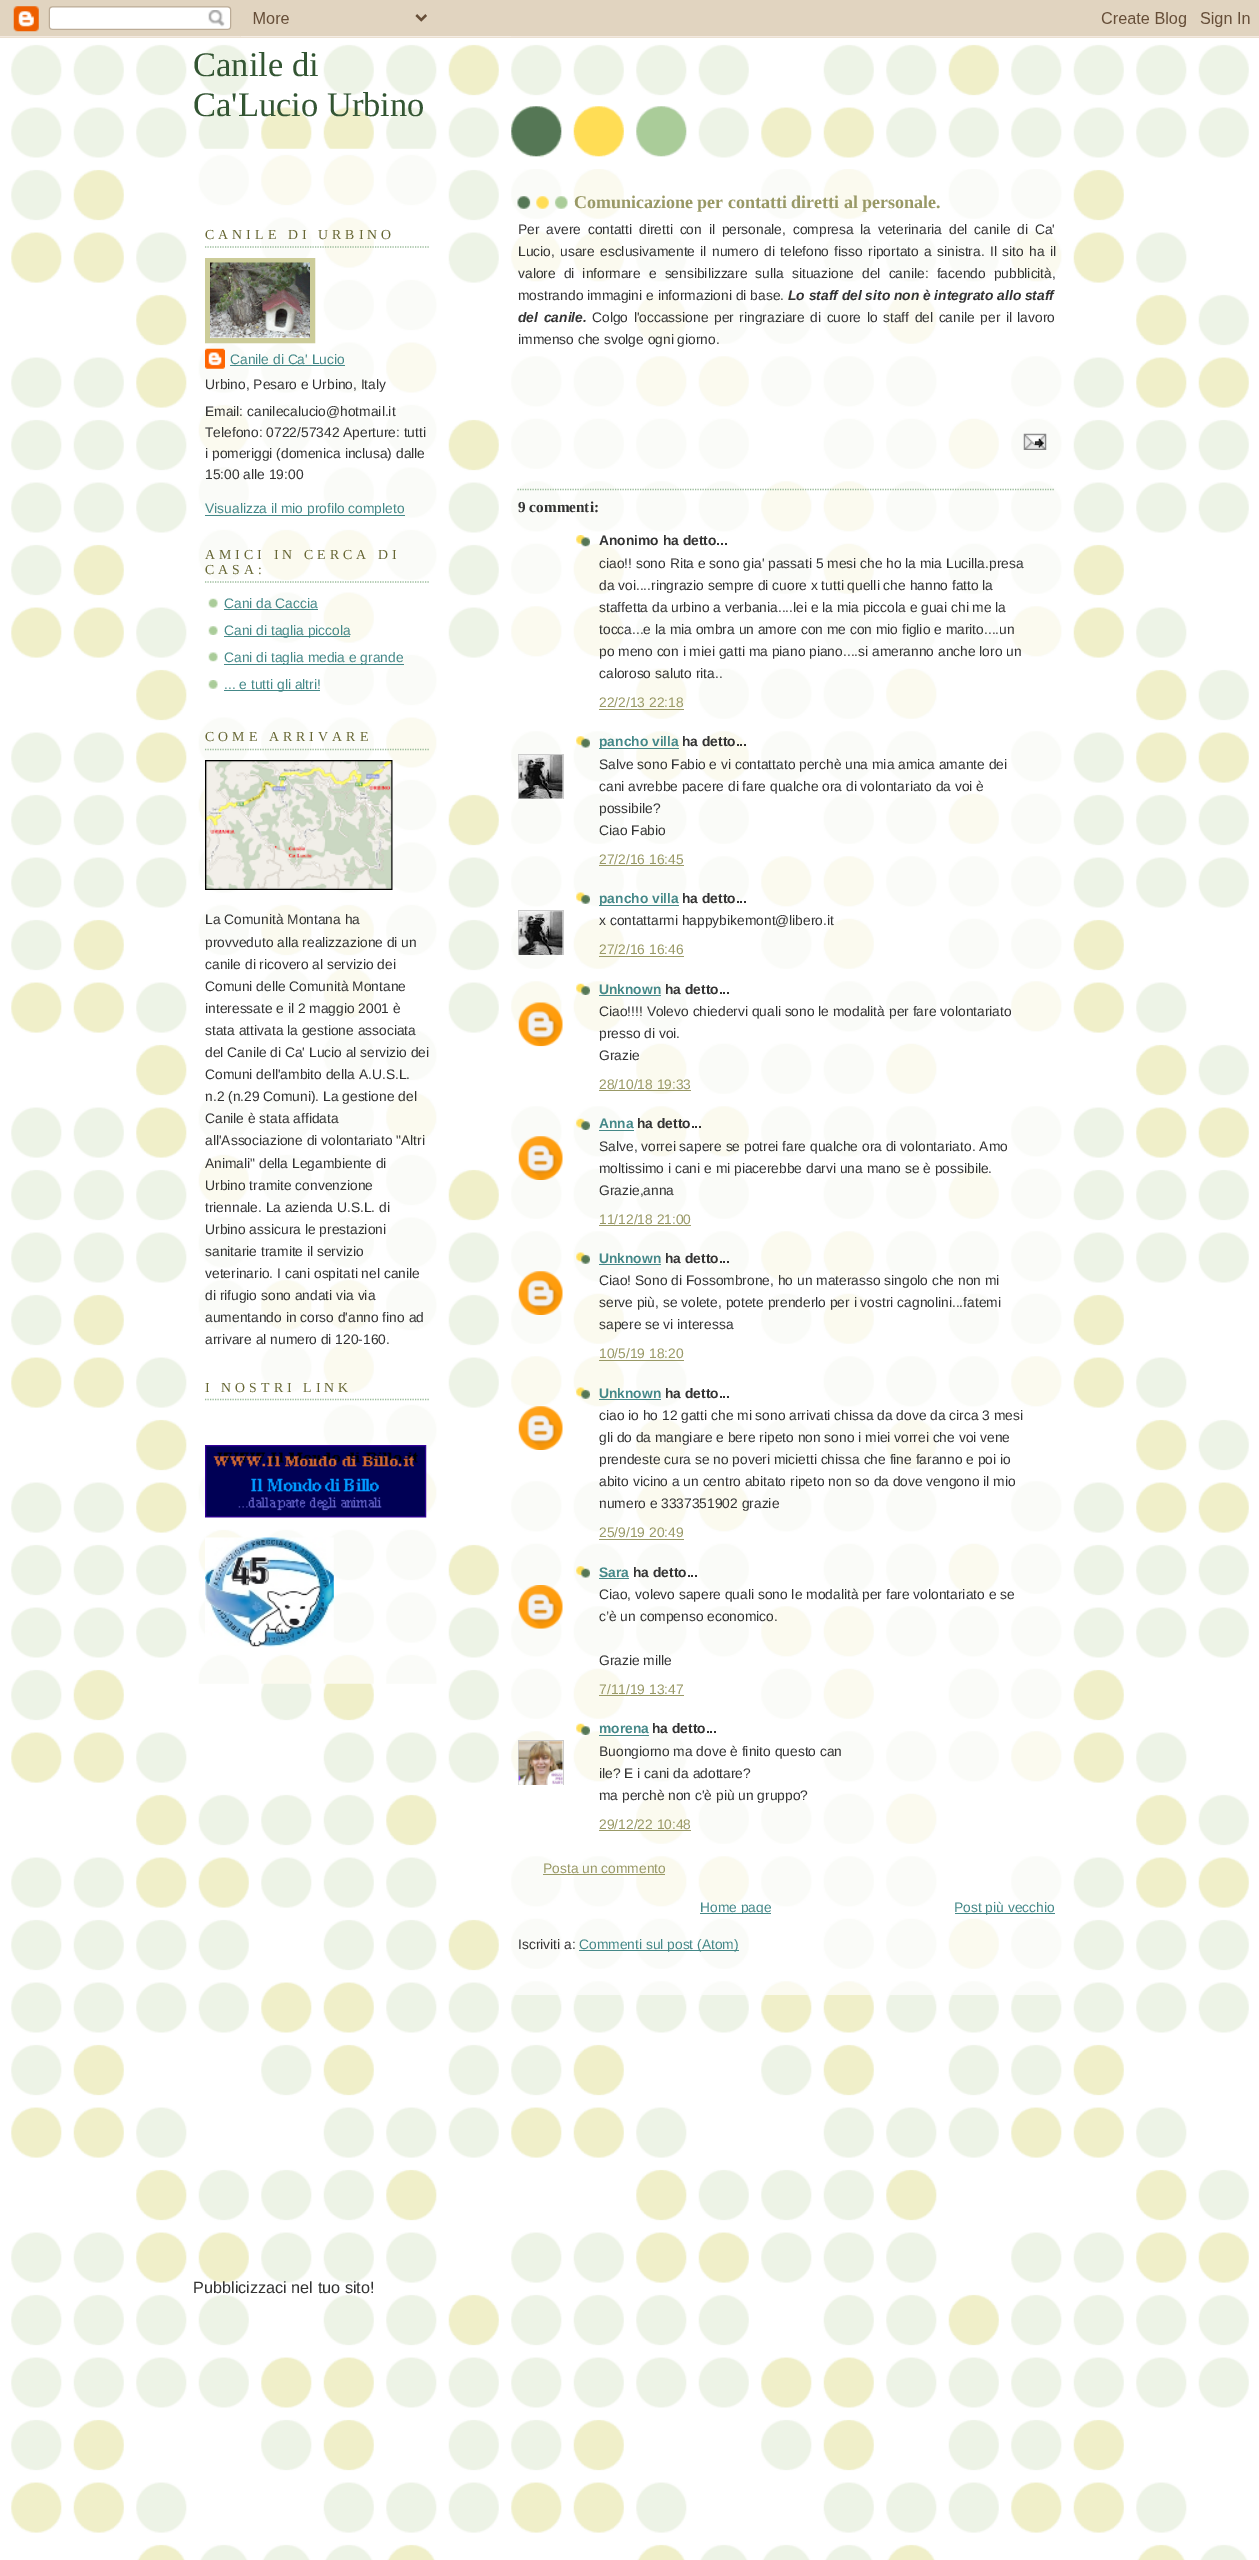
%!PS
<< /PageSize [1259 2560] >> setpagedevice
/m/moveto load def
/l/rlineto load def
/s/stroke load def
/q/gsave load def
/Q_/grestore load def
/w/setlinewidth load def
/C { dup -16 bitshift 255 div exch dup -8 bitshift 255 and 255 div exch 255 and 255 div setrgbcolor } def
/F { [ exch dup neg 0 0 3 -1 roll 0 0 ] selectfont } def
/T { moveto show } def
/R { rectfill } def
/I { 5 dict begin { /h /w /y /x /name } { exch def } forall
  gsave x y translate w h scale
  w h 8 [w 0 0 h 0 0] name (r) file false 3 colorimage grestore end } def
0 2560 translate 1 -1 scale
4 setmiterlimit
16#FFFFFF C
0 0 1259 2560 R
(1.rgb) 11 36 1238 2524 I
(2.rgb) 0 0 1259 38 I
(3.rgb) 510 106 177 52 I
/LiberationSerif-Regular 34.5 F
16#335533 C
(Canile di) 193 76 T
(Ca'Lucio Urbino) 193 116 T
(4.rgb) 198 148 239 1536 I
16#99BB99 C
1.2 w
[1.25 1.25] 0 setdash
205 247 m 225 0 l s
/LiberationSerif-Regular 13.8 F
16#666633 C
205 239 m 4.1 0 (CANILE DI URBINO) ashow
16#CCCC99 C
5 w
[] 0 setdash
207.5 260.5 105 80 rectstroke
(5.rgb) 210 262 100 76 I
(6.rgb) 205 348 20 21 I
/LiberationSans-Regular 13.8 F
16#448888 C
(Canile di Ca' Lucio) 230 364 T
230 365 115 1 R
16#333333 C
(Urbino, Pesaro e Urbino, Italy) 205 389 T
(Email: canilecalucio@hotmail.it) 205 416 T
(Telefono: 0722/57342 Aperture: tutti) 205 437 T
(i pomeriggi \(domenica inclusa\) dalle) 205 458 T
(15:00 alle 19:00) 205 479 T
16#448888 C
205 515 200 1 R
(Visualizza il mio profilo completo) 205 513 T
16#99BB99 C
1.2 w
[1.25 1.25] 0 setdash
205 582 m 225 0 l s
/LiberationSerif-Regular 13.8 F
16#666633 C
205 559 m 4.1 0 (AMICI IN CERCA DI) ashow
205 574 m 4.1 0 (CASA:) ashow
(7.rgb) 208 598 10 10 I
/LiberationSans-Regular 13.8 F
16#448888 C
(Cani da Caccia) 224 608 T
224 609 94 1 R
(8.rgb) 208 626 10 9 I
224 636 126 1 R
(Cani di taglia piccola) 224 635 T
(9.rgb) 208 652 10 10 I
224 664 180 1 R
(Cani di taglia media e grande) 224 662 T
(10.rgb) 208 680 10 9 I
224 690 96 1 R
(... e tutti gli altri!) 224 689 T
16#99BB99 C
205 749.5 m 225 0 l s
/LiberationSerif-Regular 13.8 F
16#666633 C
205 741 m 4.1 0 (COME ARRIVARE) ashow
(11.rgb) 205 760 188 130 I
/LiberationSans-Regular 13.8 F
16#333333 C
(La Comunità Montana ha) 205 924 T
(provveduto alla realizzazione di un) 205 947 T
(canile di ricovero al servizio dei) 205 969 T
(Comuni delle Comunità Montane) 205 991 T
(interessate e il 2 maggio 2001 è) 205 1013 T
(stata attivata la gestione associata) 205 1035 T
(del Canile di Ca' Lucio al servizio dei) 205 1057 T
(Comuni dell'ambito della A.U.S.L.) 205 1079 T
(n.2 \(n.29 Comuni\). La gestione del) 205 1101 T
(Canile è stata affidata) 205 1123 T
(all'Associazione di volontariato "Altri) 205 1145 T
(Animali" della Legambiente di) 205 1168 T
(Urbino tramite convenzione) 205 1190 T
(triennale. La azienda U.S.L. di) 205 1212 T
(Urbino assicura le prestazioni) 205 1234 T
(sanitarie tramite il servizio) 205 1256 T
(veterinario. I cani ospitati nel canile) 205 1278 T
(di rifugio sono andati via via) 205 1300 T
(aumentando in corso d'anno fino ad) 205 1322 T
(arrivare al numero di 120-160.) 205 1344 T
16#99BB99 C
205 1399.5 m 225 0 l s
/LiberationSerif-Regular 13.8 F
16#666633 C
205 1392 m 4.1 0 (I NOSTRI LINK) ashow
(12.rgb) 205 1445 222 73 I
(13.rgb) 205 1537 129 110 I
(14.rgb) 511 169 551 1826 I
(15.rgb) 517 196 51 13 I
/LiberationSerif-Bold 18 F
16#999966 C
(Comunicazione per contatti diretti al personale.) 574 208 T
/LiberationSans-Regular 13.8 F
16#333333 C
518 234 m 3 0 32 (Per avere contatti diretti con il personale, compresa la veterinaria del canile di Ca') widthshow
518 256 m 1.5 0 32 (Lucio, usare esclusivamente il numero di telefono fisso riportato a sinistra. Il sito ha il) widthshow
518 278 m 4.25 0 32 (valore di informare e sensibilizzare sulla situazione del canile: facendo pubblicità,) widthshow
(mostrando immagini e informazioni di base.) 518 300 T
/LiberationSans-BoldItalic 13.8 F
(Lo staff del sito non è integrato allo staff) 788 300 T
518 322 m 2 0 32 (del canile.) widthshow
/LiberationSans-Regular 13.8 F
592 322 m 1.75 0 32 (Colgo l'occassione per ringraziare di cuore lo staff del canile per il lavoro) widthshow
(immenso che svolge ogni giorno.) 518 344 T
(16.rgb) 1023 433 24 17 I
16#99BB99 C
517.5 489.5 m 537.5 0 l s
/LiberationSerif-Bold 15.25 F
16#333333 C
(9 commenti:) 518 512 T
(17.rgb) 576 535 14 12 I
/LiberationSans-Bold 13.8 F
(Anonimo ha detto...) 599 545 T
/LiberationSans-Regular 13.8 F
(ciao!! sono Rita e sono gia' passati 5 mesi che ho la mia Lucilla.presa) 599 568 T
(da voi....ringrazio sempre di cuore x tutti quelli che hanno fatto la) 599 590 T
(staffetta da urbino a verbania....lei e la mia piccola e guai chi me la) 599 612 T
(tocca...e la mia ombra un amore con me con mio figlio e marito....un) 599 634 T
(po meno con i miei gatti ma piano piano....si ameranno anche loro un) 599 656 T
(caloroso saluto rita..) 599 678 T
16#999966 C
(22/2/13 22:18) 599 707 T
599 709 85 1 R
(18.rgb) 576 736 14 12 I
16#448888 C
599 748 80 1 R
/LiberationSans-Bold 13.8 F
(pancho villa) 599 746 T
16#333333 C
(ha detto...) 682 746 T
q
518 754 46 45 rectclip
16#CCCCCC C
1 w
[] 0 setdash
518.5 754.5 45 45 rectstroke
Q_
(19.rgb) 518 755 45 44 I
/LiberationSans-Regular 13.8 F
(Salve sono Fabio e vi contattato perchè una mia amica amante dei) 599 769 T
(cani avrebbe pacere di fare qualche ora di volontariato da voi è) 599 791 T
(possibile?) 599 813 T
(Ciao Fabio) 599 835 T
16#999966 C
(27/2/16 16:45) 599 864 T
599 865 85 1 R
(20.rgb) 576 892 14 12 I
16#448888 C
599 905 80 1 R
/LiberationSans-Bold 13.8 F
(pancho villa) 599 903 T
16#333333 C
(ha detto...) 682 903 T
q
518 910 46 45 rectclip
16#CCCCCC C
1 w
[] 0 setdash
518.5 910.5 45 45 rectstroke
Q_
(21.rgb) 518 911 45 44 I
/LiberationSans-Regular 13.8 F
(x contattarmi happybikemont@libero.it) 599 925 T
16#999966 C
(27/2/16 16:46) 599 954 T
599 956 85 1 R
(22.rgb) 576 983 14 12 I
/LiberationSans-Bold 13.8 F
16#448888 C
(Unknown) 599 994 T
599 995 62 1 R
16#333333 C
(ha detto...) 665 994 T
(23.rgb) 518 1002 45 45 I
/LiberationSans-Regular 13.8 F
(Ciao!!!! Volevo chiedervi quali sono le modalità per fare volontariato) 599 1016 T
(presso di voi.) 599 1038 T
(Grazie) 599 1060 T
16#999966 C
(28/10/18 19:33) 599 1089 T
599 1090 92 1 R
(24.rgb) 576 1118 14 12 I
/LiberationSans-Bold 13.8 F
16#448888 C
(Anna) 599 1128 T
599 1130 35 1 R
16#333333 C
(ha detto...) 637 1128 T
(25.rgb) 518 1136 45 44 I
/LiberationSans-Regular 13.8 F
(Salve, vorrei sapere se potrei fare qualche ora di volontariato. Amo) 599 1151 T
(moltissimo i cani e mi piacerebbe darvi una mano se è possibile.) 599 1173 T
(Grazie,anna) 599 1195 T
16#999966 C
(11/12/18 21:00) 599 1224 T
599 1225 92 1 R
(26.rgb) 576 1252 14 12 I
/LiberationSans-Bold 13.8 F
16#448888 C
(Unknown) 599 1263 T
599 1264 62 1 R
16#333333 C
(ha detto...) 665 1263 T
(27.rgb) 518 1271 45 44 I
/LiberationSans-Regular 13.8 F
(Ciao! Sono di Fossombrone, ho un materasso singolo che non mi) 599 1285 T
(serve più, se volete, potete prenderlo per i vostri cagnolini...fatemi) 599 1307 T
(sapere se vi interessa) 599 1329 T
16#999966 C
(10/5/19 18:20) 599 1358 T
599 1360 85 1 R
(28.rgb) 576 1387 14 12 I
/LiberationSans-Bold 13.8 F
16#448888 C
(Unknown) 599 1398 T
599 1399 62 1 R
16#333333 C
(ha detto...) 665 1398 T
(29.rgb) 518 1406 45 44 I
/LiberationSans-Regular 13.8 F
(ciao io ho 12 gatti che mi sono arrivati chissa da dove da circa 3 mesi) 599 1420 T
(gli do da mangiare e bere ripeto non sono i miei vorrei che voi vene) 599 1442 T
(prendeste cura se no poveri micietti chissa che fine faranno e poi io) 599 1464 T
(abito vicino a un centro abitato ripeto non so da dove vengono il mio) 599 1486 T
(numero e 3337351902 grazie) 599 1508 T
16#999966 C
(25/9/19 20:49) 599 1537 T
599 1539 85 1 R
(30.rgb) 576 1566 14 12 I
/LiberationSans-Bold 13.8 F
16#448888 C
(Sara) 599 1577 T
599 1578 30 1 R
16#333333 C
(ha detto...) 633 1577 T
(31.rgb) 518 1585 45 44 I
/LiberationSans-Regular 13.8 F
(Ciao, volevo sapere quali sono le modalità per fare volontariato e se) 599 1599 T
(c’è un compenso economico.) 599 1621 T
(Grazie mille) 599 1665 T
16#999966 C
(7/11/19 13:47) 599 1694 T
599 1695 85 1 R
(32.rgb) 576 1723 14 12 I
/LiberationSans-Bold 13.8 F
16#448888 C
(morena) 599 1733 T
599 1735 50 1 R
16#333333 C
(ha detto...) 652 1733 T
q
518 1740 46 45 rectclip
16#CCCCCC C
1 w
[] 0 setdash
518.5 1740.5 45 45 rectstroke
Q_
(33.rgb) 518 1741 45 44 I
/LiberationSans-Regular 13.8 F
(Buongiorno ma dove è finito questo can) 599 1756 T
(ile? E i cani da adottare?) 599 1778 T
(ma perchè non c'è più un gruppo?) 599 1800 T
16#999966 C
(29/12/22 10:48) 599 1829 T
599 1830 92 1 R
(Posta un commento) 543 1873 T
543 1874 122 1 R
16#448888 C
700 1913 71 1 R
q
518 1899 537 15 rectclip
(Home page) 700 1912 T
Q_
955 1913 100 1 R
(Post più vecchio) 954 1912 T
16#333333 C
(Iscriviti a:) 518 1949 T
16#448888 C
579 1950 160 1 R
(Commenti sul post \(Atom\)) 579 1949 T
/LiberationSans-Regular 16.25 F
16#333333 C
(Pubblicizzaci nel tuo sito!) 193 2293 T
showpage
